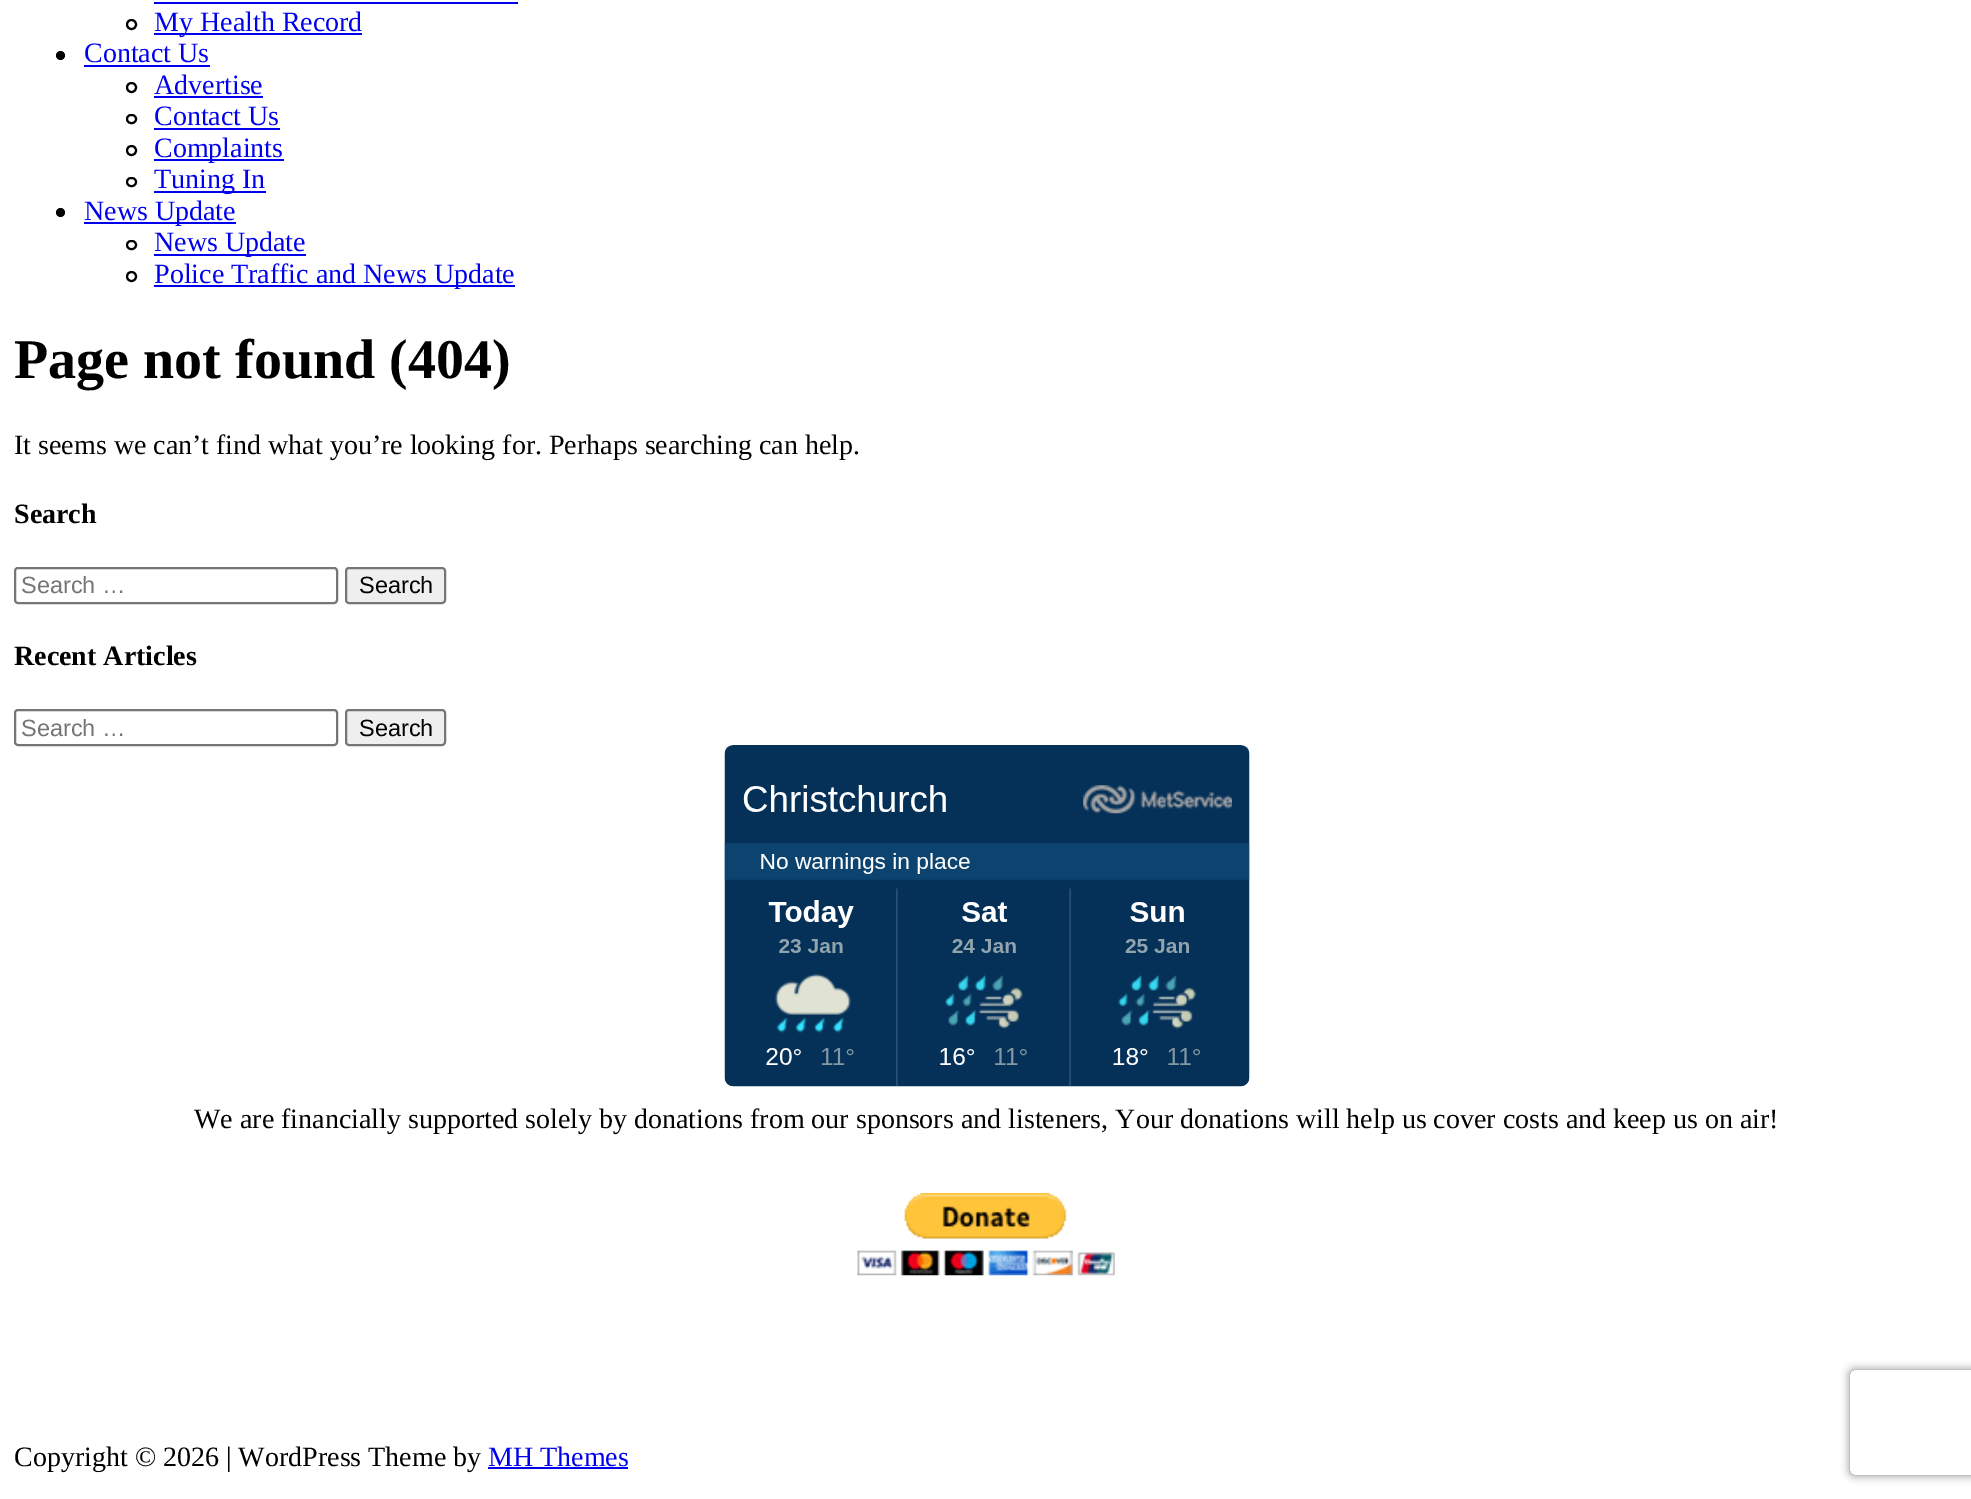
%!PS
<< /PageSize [1971 1499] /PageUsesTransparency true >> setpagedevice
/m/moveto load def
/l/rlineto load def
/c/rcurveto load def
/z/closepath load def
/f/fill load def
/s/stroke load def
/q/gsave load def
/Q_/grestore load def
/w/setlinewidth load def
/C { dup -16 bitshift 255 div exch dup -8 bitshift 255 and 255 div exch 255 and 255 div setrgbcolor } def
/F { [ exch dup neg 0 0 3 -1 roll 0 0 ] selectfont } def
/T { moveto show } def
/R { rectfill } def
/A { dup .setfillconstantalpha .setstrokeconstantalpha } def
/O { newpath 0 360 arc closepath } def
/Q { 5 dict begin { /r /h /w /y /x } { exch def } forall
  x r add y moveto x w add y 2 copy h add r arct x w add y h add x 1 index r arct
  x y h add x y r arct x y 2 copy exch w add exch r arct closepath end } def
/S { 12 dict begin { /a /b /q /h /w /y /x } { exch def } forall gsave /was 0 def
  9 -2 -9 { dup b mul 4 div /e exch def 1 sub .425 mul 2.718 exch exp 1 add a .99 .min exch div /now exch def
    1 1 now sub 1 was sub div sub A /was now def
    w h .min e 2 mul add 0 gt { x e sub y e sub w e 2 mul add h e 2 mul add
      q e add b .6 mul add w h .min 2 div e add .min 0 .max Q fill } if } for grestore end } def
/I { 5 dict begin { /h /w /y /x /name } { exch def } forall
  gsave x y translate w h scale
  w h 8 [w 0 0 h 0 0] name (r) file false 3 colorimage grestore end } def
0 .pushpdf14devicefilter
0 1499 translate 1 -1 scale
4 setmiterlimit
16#FFFFFF C
0 0 1971 1499 R
16#0000EE C
154 2 364 2 R
16#000000 C
2 w
131.5 24.5 4.5 O s
16#0000EE C
154 33 208 2 R
/LiberationSerif-Regular 28 F
(My Health Record) 154 31 T
16#000000 C
60.5 55.5 4.5 O f
16#0000EE C
(Contact Us) 84 62 T
84 65 126 2 R
16#000000 C
131.5 87.5 4.5 O s
16#0000EE C
(Advertise) 154 94 T
154 96 109 2 R
16#000000 C
127 115 9 8 4 Q s
16#0000EE C
(Contact Us) 154 125 T
154 128 126 2 R
16#000000 C
131.5 150.5 4.5 O s
16#0000EE C
154 159 130 2 R
(Complaints) 154 157 T
16#000000 C
127 178 9 8 4 Q s
16#0000EE C
154 191 112 2 R
(Tuning In) 154 188 T
16#000000 C
60.5 212.5 4.5 O f
16#0000EE C
84 222 152 2 R
(News Update) 84 220 T
16#000000 C
127 241 9 8 4 Q s
16#0000EE C
154 254 152 2 R
(News Update) 154 251 T
16#000000 C
131.5 276.5 4.5 O s
16#0000EE C
154 285 361 2 R
(Police Traffic and News Update) 154 283 T
/LiberationSerif-Bold 56 F
16#000000 C
(Page not found \(404\)) 14 378 T
/LiberationSerif-Regular 28 F
(It seems we can’t find what you’re looking for. Perhaps searching can help.) 14 454 T
/LiberationSerif-Bold 28 F
(Search) 14 523 T
16#767676 C
15 568 322 35 3 Q s
/LiberationSans-Regular 23.5 F
16#757575 C
(Search …) 21 593 T
16#EFEFEF C
346 568 99 35 3 Q q f Q_
16#767676 C
s
16#000000 C
(Search) 359 593 T
/LiberationSerif-Bold 28 F
(Recent Articles) 14 665 T
16#767676 C
15 710 322 35 3 Q s
/LiberationSans-Regular 23.5 F
16#757575 C
(Search …) 21 736 T
16#EFEFEF C
346 710 99 35 3 Q q f Q_
16#767676 C
s
16#000000 C
(Search) 359 736 T
(1.rgb) 724 745 526 342 I
/LiberationSerif-Regular 28 F
(We are financially supported solely by donations from our sponsors and listeners, Your donations will help us cover costs and keep us on air!) 194 1128 T
(2.rgb) 857 1193 258 83 I
(Copyright © 2026 | WordPress Theme by) 14 1466 T
16#0000EE C
(MH Themes) 488 1466 T
488 1467 140 2 R
q
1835 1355 m 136 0 l 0 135 l -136 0 l z 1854 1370 m 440 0 l 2 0 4 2 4 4 c 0 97 l 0 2 -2 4 -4 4 c -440 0 l -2 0 -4 -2 -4 -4 c 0 -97 l 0 -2 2 -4 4 -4 c z eoclip newpath
16#808080 C
1850 1370 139 105 4 4.5 1 S
Q_
.poppdf14devicefilter showpage
